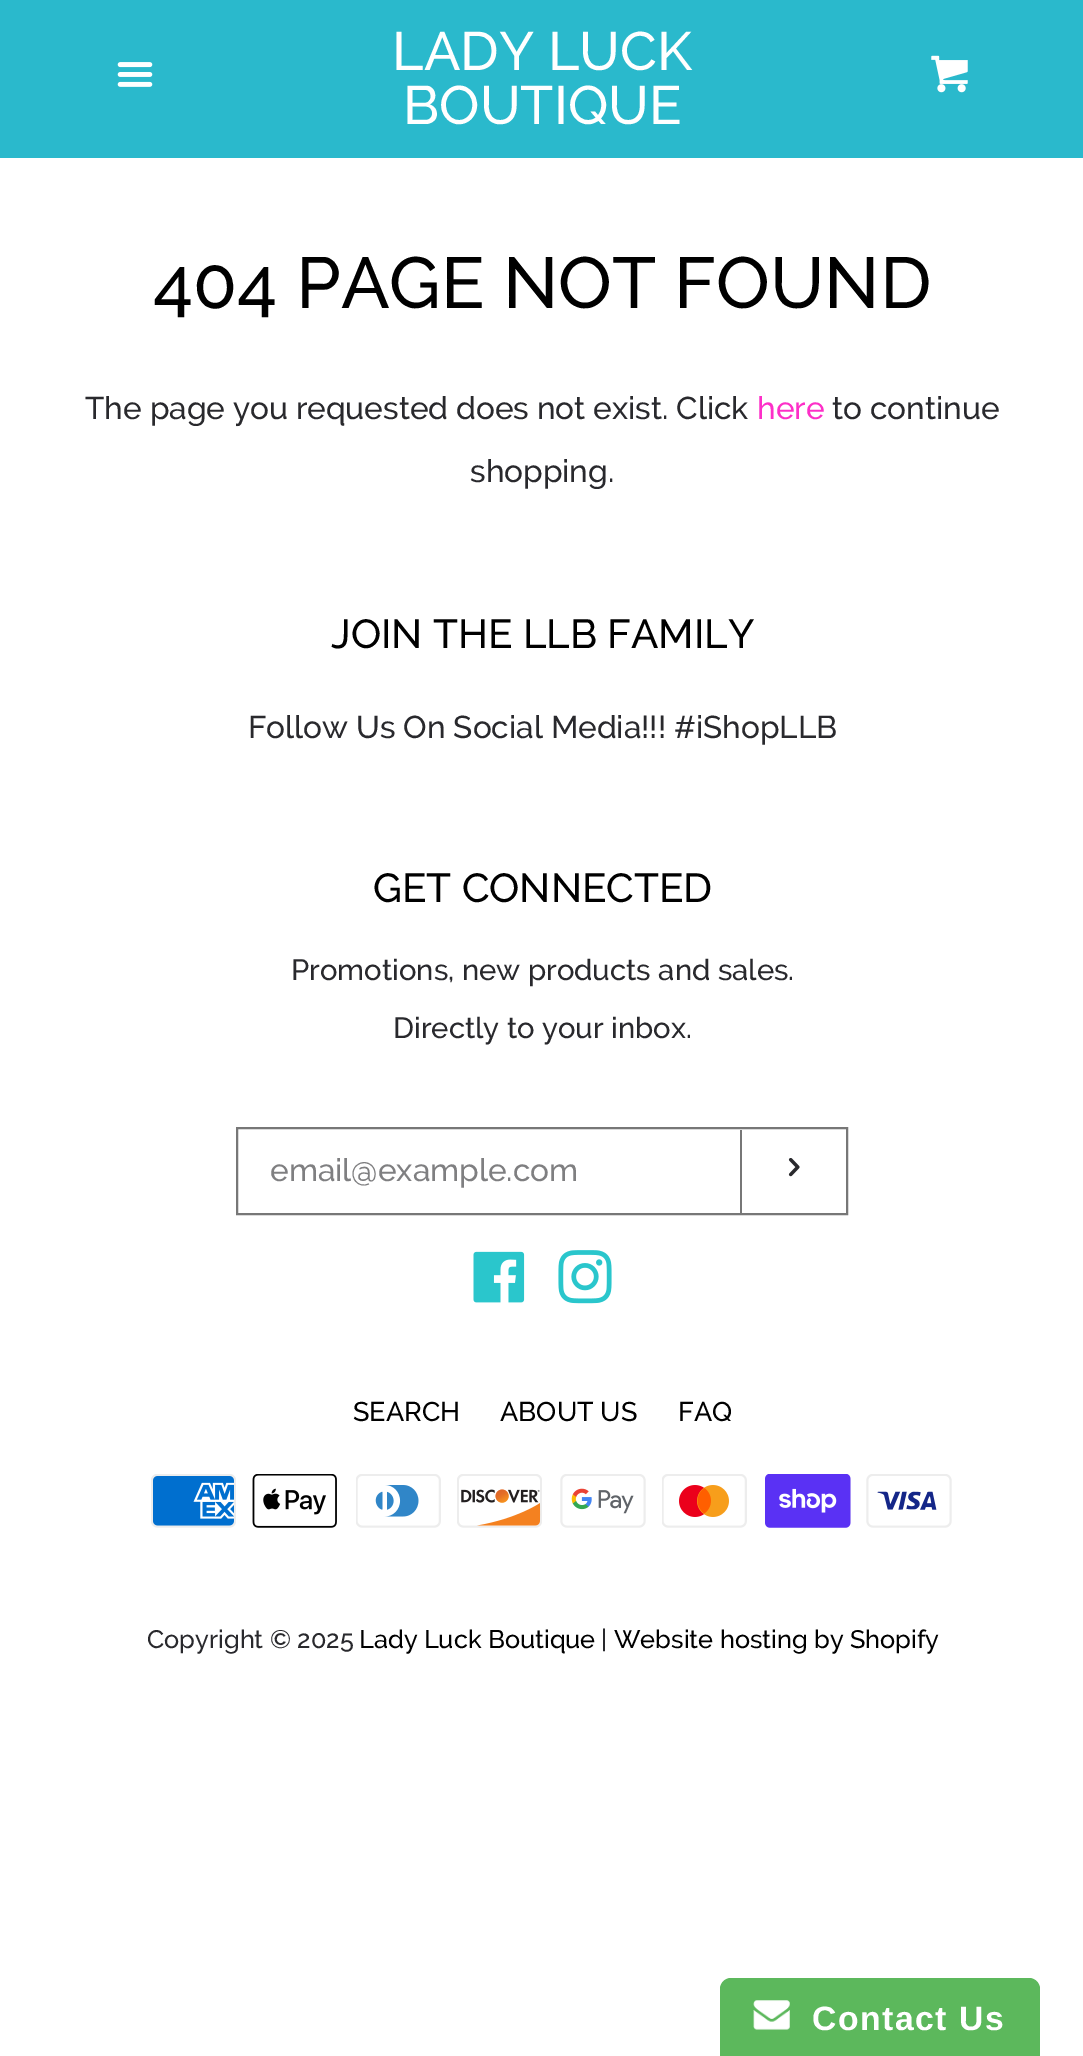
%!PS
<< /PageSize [1083 2056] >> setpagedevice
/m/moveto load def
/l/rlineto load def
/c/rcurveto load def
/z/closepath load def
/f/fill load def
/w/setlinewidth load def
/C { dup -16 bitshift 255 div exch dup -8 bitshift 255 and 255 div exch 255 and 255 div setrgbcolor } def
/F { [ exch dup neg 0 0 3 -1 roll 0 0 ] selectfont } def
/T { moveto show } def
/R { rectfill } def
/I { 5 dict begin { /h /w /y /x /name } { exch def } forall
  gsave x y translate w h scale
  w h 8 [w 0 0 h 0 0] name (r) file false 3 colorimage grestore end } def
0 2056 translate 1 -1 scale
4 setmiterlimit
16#2AB9CC C
0 0 1083 2056 R
(1.rgb) 117 62 36 25 I
/Raleway-Medium 54 F
16#FFFFFF C
(LADY LUCK) 392 70 T
(BOUTIQUE) 403 124 T
(2.rgb) 931 55 37 38 I
0 158 1083 1898 R
/Raleway-Medium 72 F
16#000000 C
(404 PAGE NOT FOUND) 153 308 T
/Raleway-Medium 31.5 F
16#29292D C
(The page you requested does not exist. Click) 85 419 T
16#FD2FC8 C
(here) 757 419 T
16#29292D C
(to continue) 832 419 T
(shopping.) 470 482 T
/Raleway-Medium 40.5 F
16#000000 C
(JOIN THE LLB FAMILY) 331 648 T
/Raleway-Medium 31.5 F
16#29292D C
(Follow Us On Social Media!!! #iShopLLB) 248 738 T
/Raleway-Medium 40.5 F
16#000000 C
(GET CONNECTED) 373 902 T
/Raleway-Medium 29.25 F
16#29292D C
(Promotions, new products and sales.) 291 980 T
(Directly to your inbox.) 393 1038 T
16#777777 C
2 w
237 1128 610 86 rectstroke
740 1130 2 83 R
/Raleway-Medium 31.5 F
16#7F7F81 C
(email@example.com) 270 1181 T
(3.rgb) 788 1158 12 19 I
(4.rgb) 473 1251 52 52 I
(5.rgb) 558 1250 54 54 I
/Raleway-Medium 27 F
16#000000 C
(SEARCH) 353 1421 T
(ABOUT US) 500 1421 T
(FAQ) 678 1421 T
(6.rgb) 151 1474 85 54 I
(7.rgb) 252 1474 85 54 I
(8.rgb) 356 1474 85 54 I
(9.rgb) 457 1474 85 54 I
(10.rgb) 560 1474 86 54 I
(11.rgb) 662 1474 85 54 I
(12.rgb) 765 1474 86 54 I
(13.rgb) 866 1474 86 54 I
/Raleway-Medium 25.25 F
16#29292D C
(Copyright © 2025) 147 1648 T
16#000000 C
(Lady Luck Boutique) 359 1648 T
16#29292D C
(|) 601 1648 T
16#000000 C
(Website hosting by Shopify) 614 1648 T
16#5CB85C C
731 1978 m 298 0 l 6 0 11 5 11 11 c 0 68 l -320 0 l 0 -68 l 0 -6 5 -11 11 -11 c z f
(14.rgb) 753 2000 37 30 I
/LiberationSans-Bold 33.75 F
16#FFFFFF C
812 2030 m 1.5 0 (Contact Us) ashow
showpage
